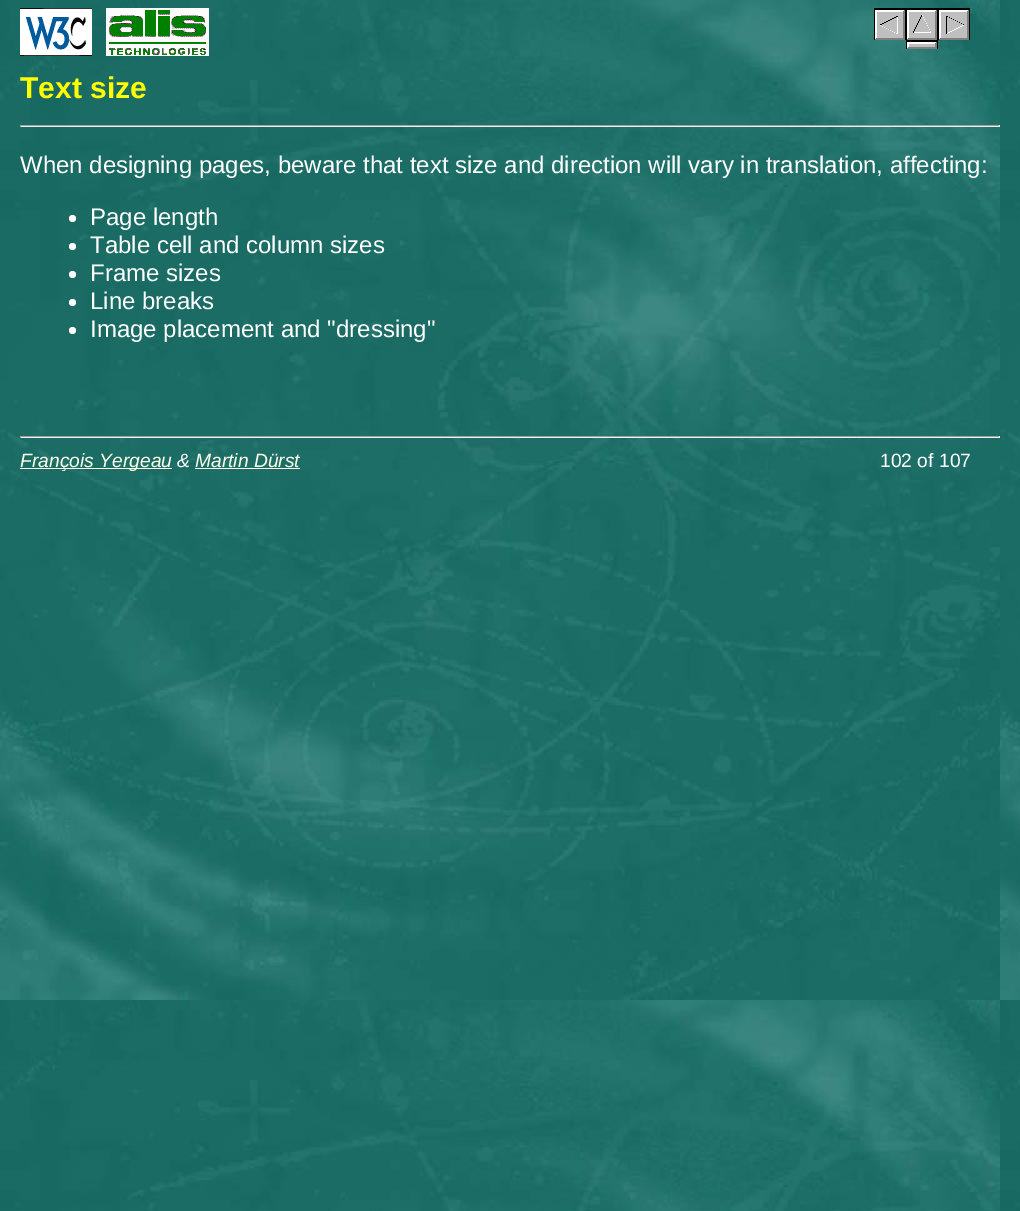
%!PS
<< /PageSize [1020 1211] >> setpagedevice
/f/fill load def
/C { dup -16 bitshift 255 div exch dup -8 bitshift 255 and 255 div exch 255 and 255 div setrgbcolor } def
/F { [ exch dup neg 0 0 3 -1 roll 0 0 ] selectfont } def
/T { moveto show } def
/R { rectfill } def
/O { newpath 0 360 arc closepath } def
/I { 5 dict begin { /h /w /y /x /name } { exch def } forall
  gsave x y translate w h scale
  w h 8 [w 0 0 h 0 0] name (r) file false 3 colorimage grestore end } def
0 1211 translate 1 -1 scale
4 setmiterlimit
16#FFFFFF C
0 0 1020 1211 R
(1.rgb) 0 0 1020 1211 I
(2.rgb) 20 8 72 48 I
(3.rgb) 106 8 103 48 I
(4.rgb) 874 8 32 32 I
(5.rgb) 906 8 32 32 I
(6.rgb) 938 8 32 32 I
(7.rgb) 906 40 32 9 I
/LiberationSans-Bold 30 F
16#FFFF00 C
(Text size) 20 98 T
16#9F9F9F C
20 125 980 1 R
16#EEEEEE C
999 125 1 2 R
20 126 980 1 R
16#9F9F9F C
20 125 1 2 R
/LiberationSans-Regular 24 F
16#FFFFFF C
(When designing pages, beware that text size and direction will vary in translation, affecting:) 20 173 T
72.5 218.5 3.5 O f
(Page length) 90 225 T
72.5 246.5 3.5 O f
(Table cell and column sizes) 90 253 T
72.5 274.5 3.5 O f
(Frame sizes) 90 281 T
72.5 302.5 3.5 O f
(Line breaks) 90 309 T
72.5 330.5 3.5 O f
(Image placement and "dressing") 90 337 T
16#9F9F9F C
20 436 980 1 R
16#EEEEEE C
999 436 1 2 R
20 437 980 1 R
16#9F9F9F C
20 436 1 2 R
16#FFFFE8 C
20 468 152 1 R
/LiberationSans-Italic 19.25 F
(François Yergeau) 20 467 T
16#FFFFFF C
(&) 177 467 T
16#FFFFE8 C
(Martin Dürst) 195 467 T
195 468 105 1 R
/LiberationSans-Regular 19.25 F
16#FFFFFF C
(102 of 107) 880 467 T
showpage
